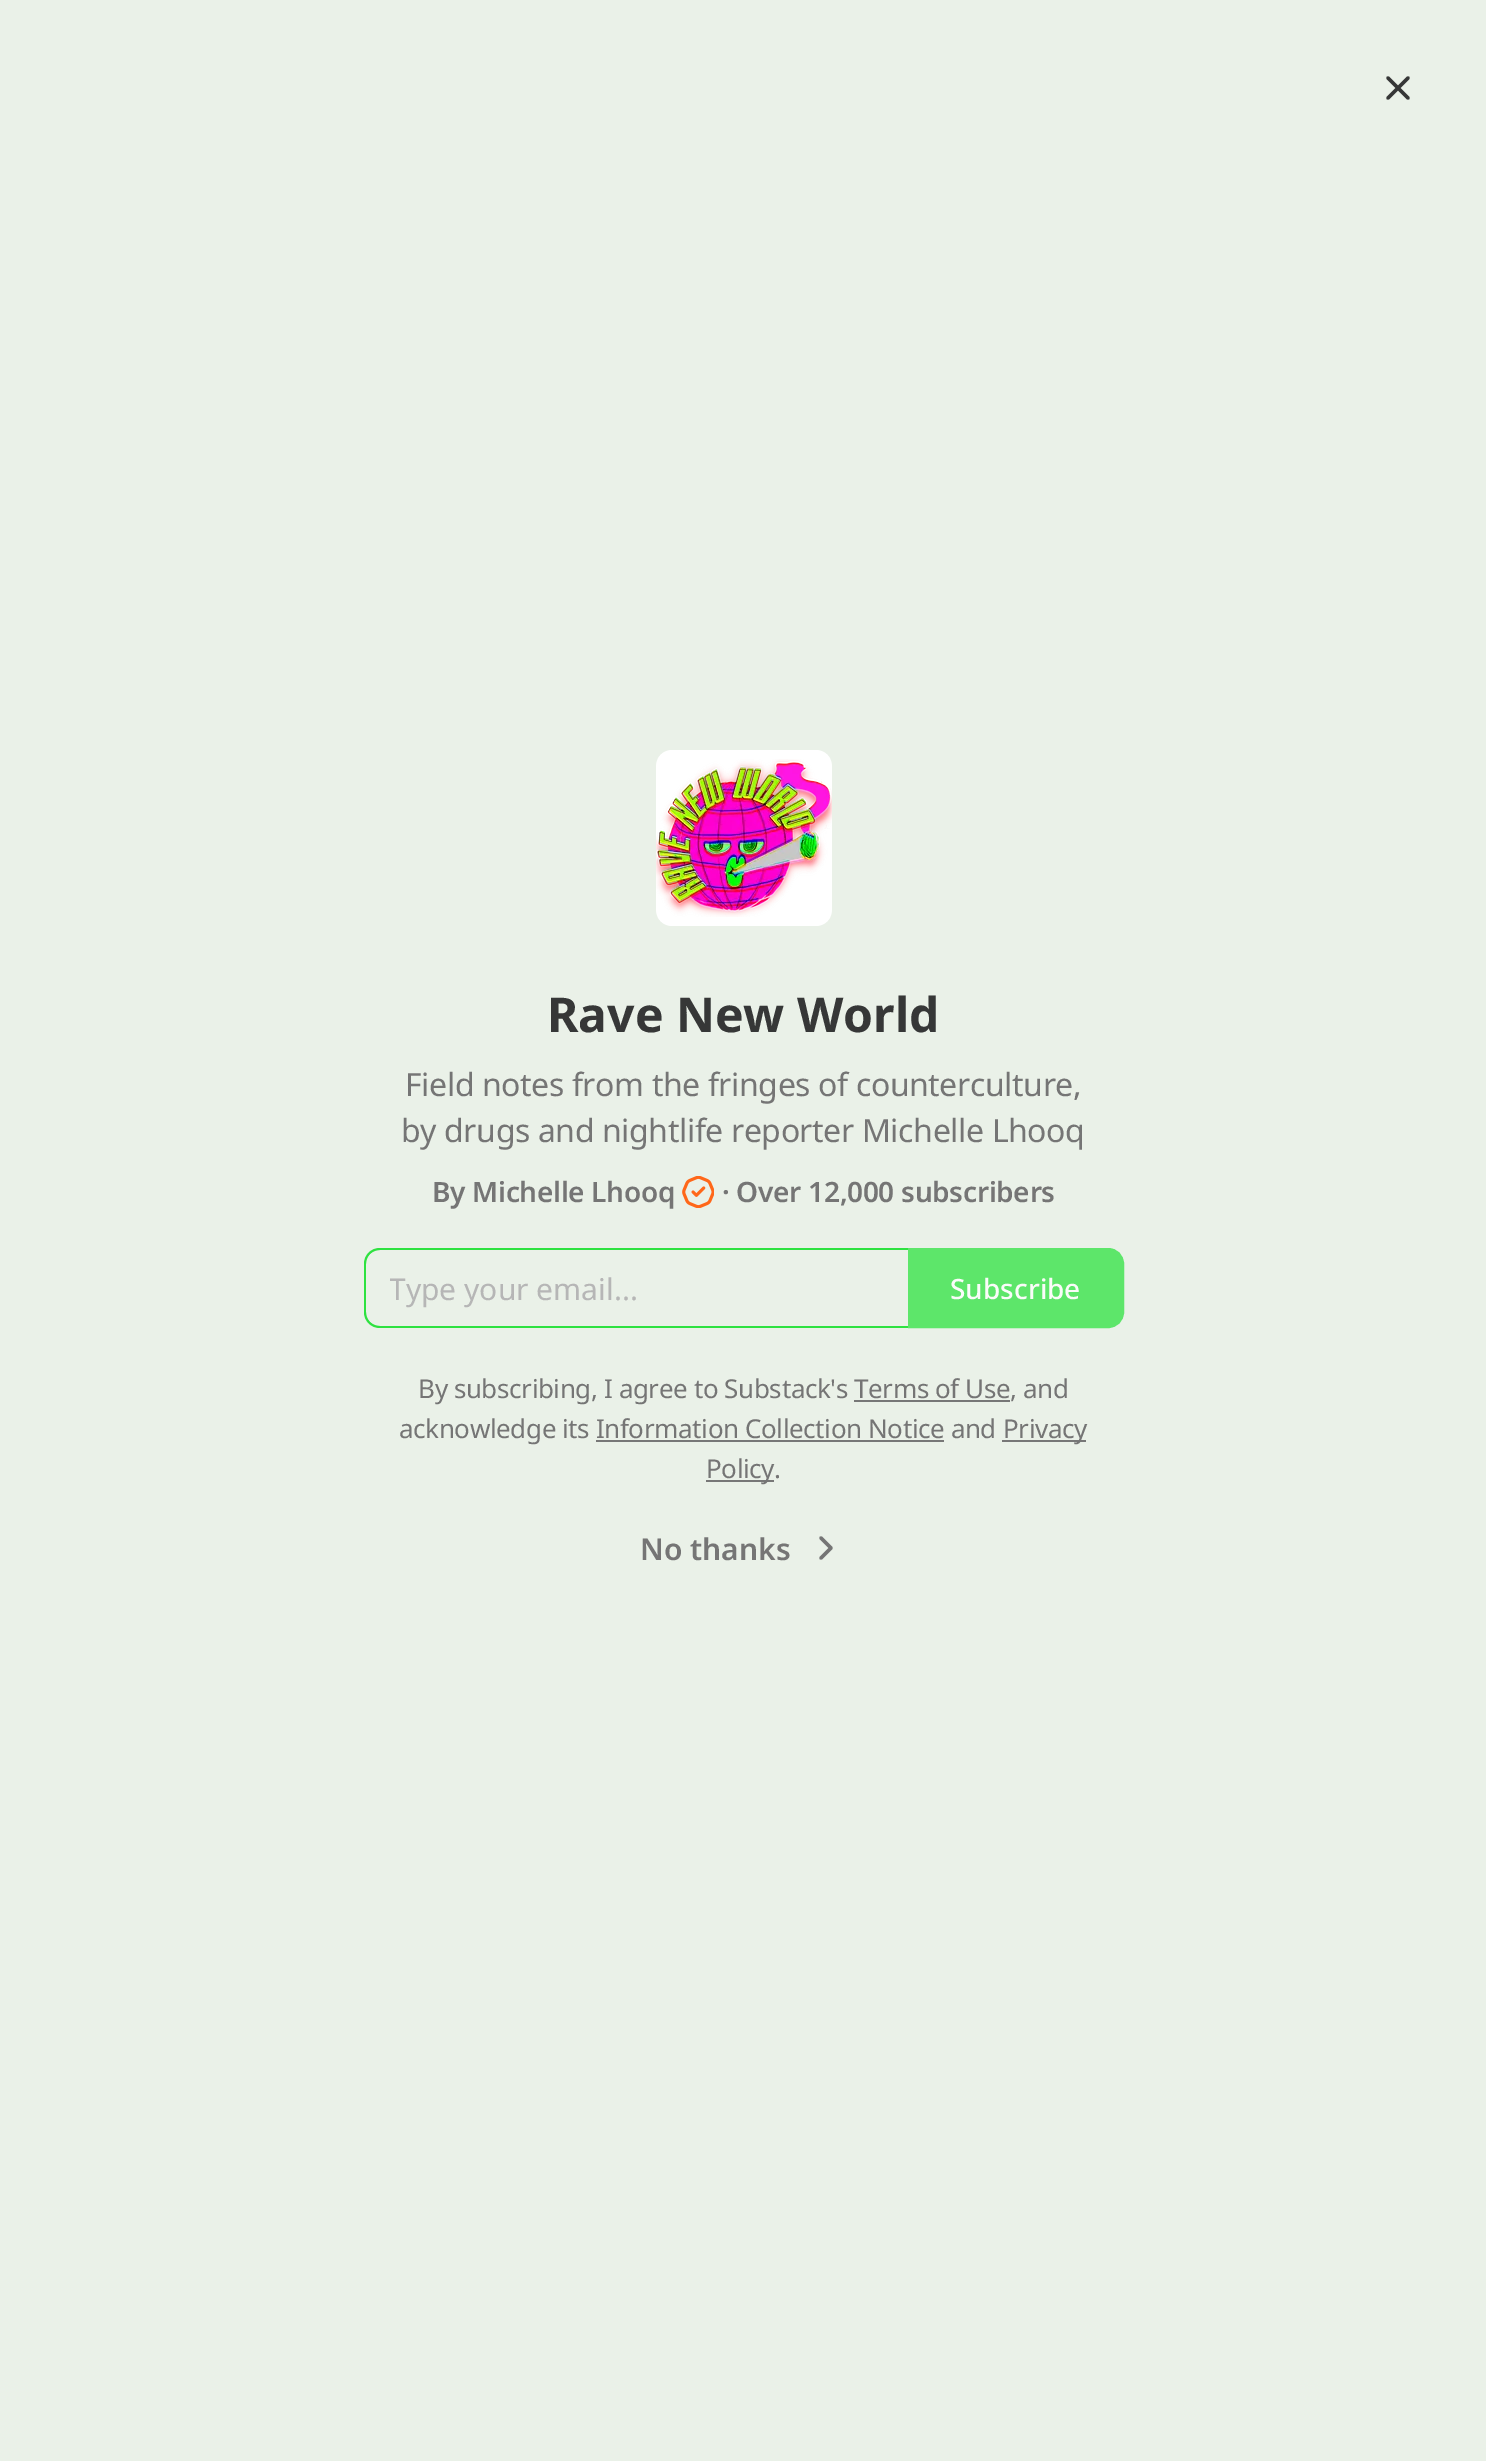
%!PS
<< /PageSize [1486 2461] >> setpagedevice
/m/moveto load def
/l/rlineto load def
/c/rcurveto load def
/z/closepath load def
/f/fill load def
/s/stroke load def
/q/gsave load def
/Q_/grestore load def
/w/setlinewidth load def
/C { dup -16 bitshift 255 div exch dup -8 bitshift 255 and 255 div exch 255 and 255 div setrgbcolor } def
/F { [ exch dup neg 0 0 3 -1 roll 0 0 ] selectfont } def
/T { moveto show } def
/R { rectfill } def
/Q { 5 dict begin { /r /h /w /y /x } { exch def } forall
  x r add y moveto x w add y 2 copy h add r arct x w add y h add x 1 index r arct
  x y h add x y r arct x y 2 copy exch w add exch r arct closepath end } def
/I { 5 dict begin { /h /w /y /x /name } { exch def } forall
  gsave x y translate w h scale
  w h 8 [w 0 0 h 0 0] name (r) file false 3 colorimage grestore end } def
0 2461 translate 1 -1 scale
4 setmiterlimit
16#EAF1E8 C
0 0 1486 2461 R
16#363737 C
3.3 w
1 setlinecap
1 setlinejoin
1408 78 m -20 20 l 1388 78 m 20 20 l s
16#FFFFFF C
656 750 176 176 16 Q f
(1.rgb) 656 759 176 158 I
/NotoSans-Bold 48 F
16#363737 C
(Rave New World) 547 1032 T
/NotoSans-Regular 32 F
16#757575 C
405 1096 m -.4 0 (Field notes from the fringes of counterculture,) ashow
401 1142 m -.4 0 (by drugs and nightlife reporter Michelle Lhooq) ashow
/NotoSans-SemiBold 28 F
432 1202 m -.3 0 (By Michelle Lhooq) ashow
(2.rgb) 682 1176 32 32 I
722 1202 m -.3 0 (· Over 12,000 subscribers) ashow
16#2EE240 C
380 1248 m 528 0 l 0 80 l -528 0 l -9 0 -16 -7 -16 -16 c 0 -48 l 0 -9 7 -16 16 -16 c z 380 1250 m 528 0 l 0 76 l -528 0 l -8 0 -14 -6 -14 -14 c 0 -48 l 0 -8 6 -14 14 -14 c z eofill
q
390 1268 494 40 rectclip
/NotoSans-Regular 30 F
16#B6B6B6 C
(Type your email...) 389 1300 T
Q_
16#5DE66A C
909 1249 m 199 0 l 8.5 0 15 6.5 15 15 c 0 48 l 0 8.5 -6.5 15 -15 15 c -199 0 l z q f Q_
2 w
0 setlinecap
0 setlinejoin
s
/NotoSans-Medium 28 F
16#FAFCF9 C
(Subscribe) 950 1299 T
/NotoSans-Regular 26 F
16#757575 C
418 1398 m -.4 0 (By subscribing, I agree to Substack's Terms of Use, and) ashow
16#777777 C
854 1400 156 2 R
16#757575 C
399 1438 m -.4 0 (acknowledge its Information Collection Notice and) ashow
16#777777 C
1002 1440 84 2 R
16#757575 C
1003 1438 m -.4 0 (Privacy) ashow
16#777777 C
596 1440 348 2 R
706 1480 68 2 R
16#757575 C
706 1478 m -.4 0 (Policy.) ashow
/NotoSans-SemiBold 30 F
(No thanks) 640 1560 T
3.3 w
1 setlinecap
1 setlinejoin
821 1558 m 10 -10 l -10 -10 l s
showpage
